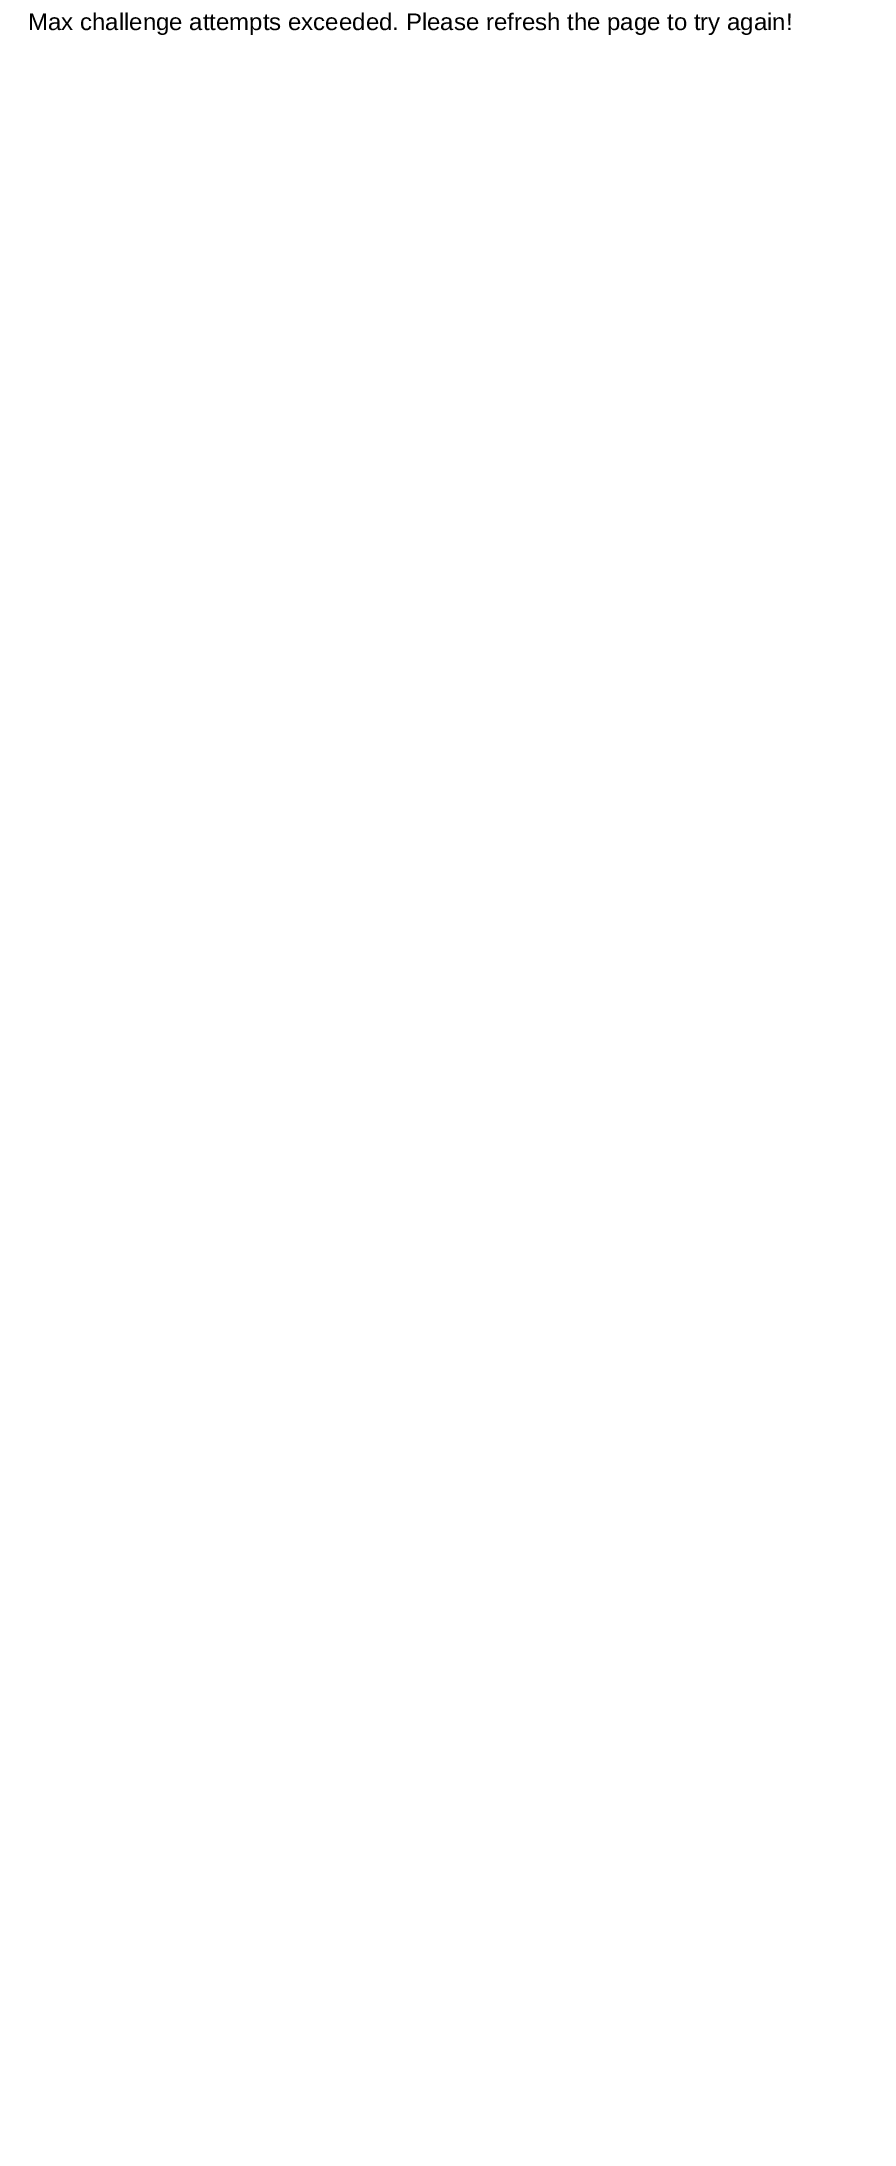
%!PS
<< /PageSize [896 2166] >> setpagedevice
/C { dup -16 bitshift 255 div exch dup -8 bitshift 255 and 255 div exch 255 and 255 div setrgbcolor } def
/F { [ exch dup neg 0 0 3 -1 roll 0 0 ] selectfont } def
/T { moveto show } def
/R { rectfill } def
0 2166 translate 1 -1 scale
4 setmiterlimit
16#FFFFFF C
0 0 896 2166 R
/LiberationSans-Regular 24 F
16#000000 C
(Max challenge attempts exceeded. Please refresh the page to try again!) 28 30 T
showpage
